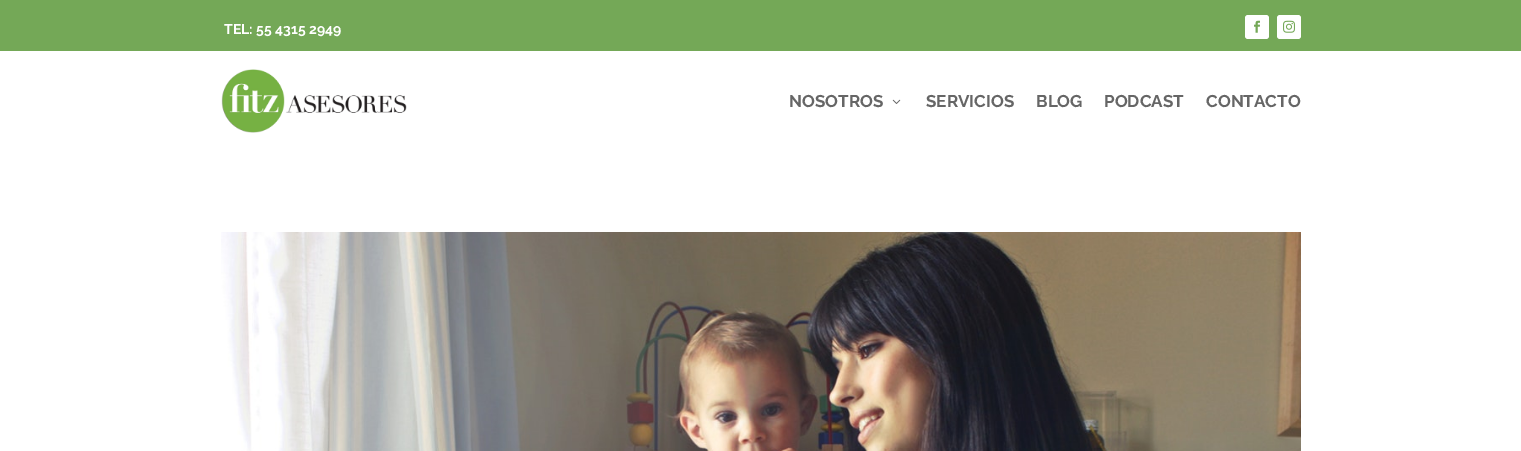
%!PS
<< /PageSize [1521 451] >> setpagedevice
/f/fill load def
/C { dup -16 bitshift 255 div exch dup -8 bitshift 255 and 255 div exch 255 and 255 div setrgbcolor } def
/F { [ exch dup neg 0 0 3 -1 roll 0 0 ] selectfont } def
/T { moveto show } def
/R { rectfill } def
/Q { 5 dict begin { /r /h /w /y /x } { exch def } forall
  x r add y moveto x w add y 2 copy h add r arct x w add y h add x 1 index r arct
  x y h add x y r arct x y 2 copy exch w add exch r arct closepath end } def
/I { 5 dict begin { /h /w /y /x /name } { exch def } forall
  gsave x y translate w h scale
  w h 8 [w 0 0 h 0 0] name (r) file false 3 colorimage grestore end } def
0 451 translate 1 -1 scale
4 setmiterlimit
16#FFFFFF C
0 0 1521 451 R
16#74A857 C
0 0 1521 51 R
/Raleway-Thin 14 F
16#FFFFFF C
(TEL: 55 4315 2949) 224 34 T
1245 15 24 24 3 Q f
(1.rgb) 1254 20 6 13 I
1277 15 24 24 3 Q f
(2.rgb) 1283 20 12 13 I
(3.rgb) 221 69 186 64 I
/Raleway-Thin 17 F
16#666666 C
(NOSOTROS) 789 107 T
(4.rgb) 892 99 9 5 I
(SERVICIOS) 926 107 T
(BLOG) 1036 107 T
(PODCAST) 1104 107 T
(CONTACTO) 1206 107 T
(5.rgb) 221 232 1080 219 I
showpage
